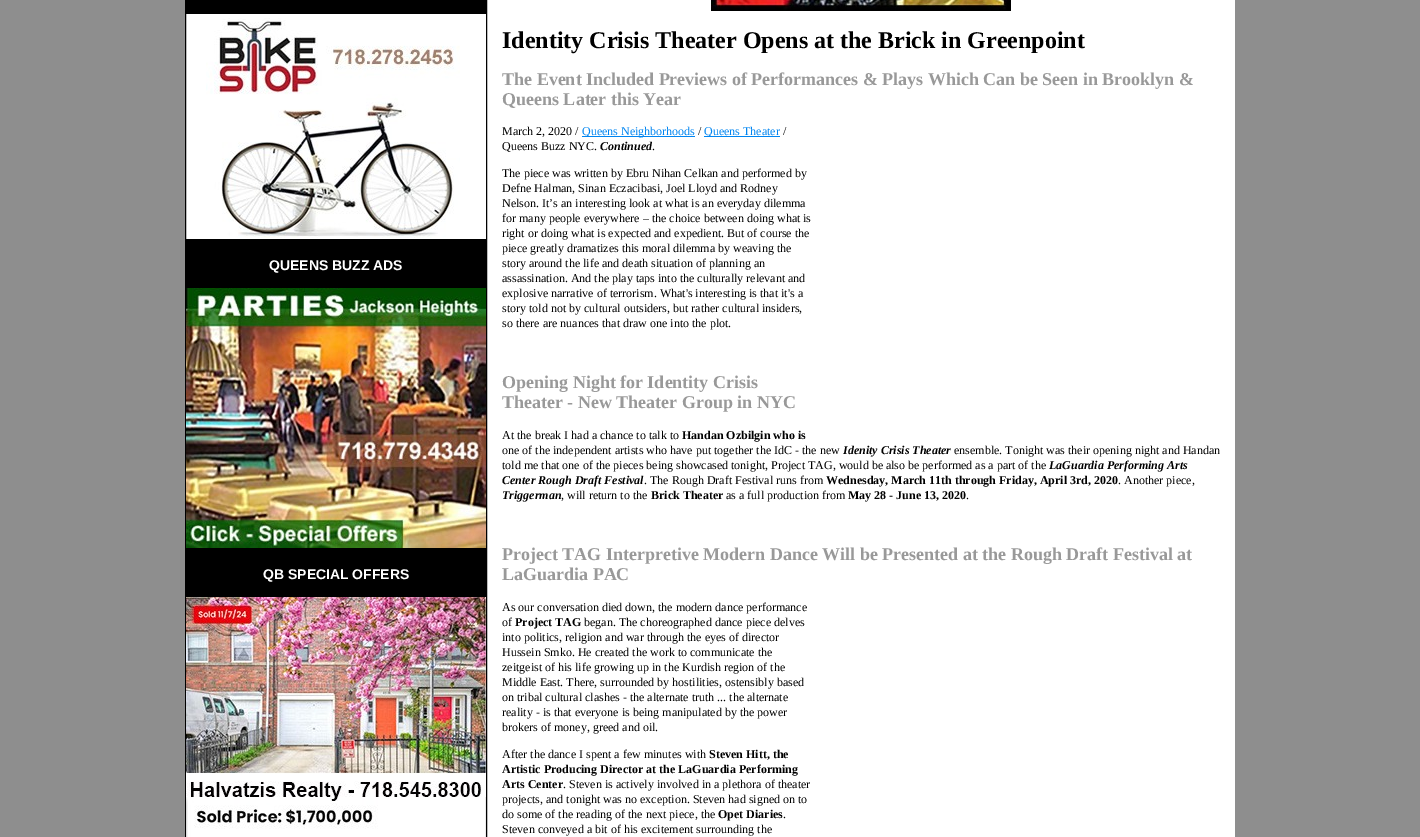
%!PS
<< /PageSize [1420 837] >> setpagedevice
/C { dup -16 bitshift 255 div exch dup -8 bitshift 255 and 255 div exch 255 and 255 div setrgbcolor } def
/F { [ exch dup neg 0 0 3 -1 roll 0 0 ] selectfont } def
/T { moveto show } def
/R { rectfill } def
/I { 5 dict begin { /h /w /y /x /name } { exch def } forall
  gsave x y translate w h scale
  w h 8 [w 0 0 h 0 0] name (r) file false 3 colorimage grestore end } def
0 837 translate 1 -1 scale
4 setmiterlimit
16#8E8E8E C
0 0 1420 837 R
16#FFFFFF C
186 0 1049 837 R
16#000000 C
185.5 -.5 301 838 rectstroke
186 0 300 14 R
(1.rgb) 206 18 254 220 I
186 239 300 49 R
/LiberationSans-Bold 14 F
16#FFFFFF C
(QUEENS BUZZ ADS) 269 270 T
(2.rgb) 186 288 300 260 I
16#000000 C
186 548 300 49 R
16#FFFFFF C
(QB SPECIAL OFFERS) 263 579 T
(3.rgb) 186 597 300 240 I
(4.rgb) 711 0 300 11 I
/LiberationSerif-Bold 24 F
16#000000 C
(Identity Crisis Theater Opens at the Brick in Greenpoint) 502 48 T
/LiberationSerif-Bold 18 F
16#999999 C
(The Event Included Previews of Performances & Plays Which Can be Seen in Brooklyn &) 502 85 T
(Queens Later this Year) 502 105 T
/LiberationSerif-Regular 12 F
16#000000 C
(March 2, 2020 /) 502 135 T
16#0085F1 C
582 136 113 1 R
(Queens Neighborhoods) 582 135 T
16#000000 C
(/) 698 135 T
16#0085F1 C
704 136 76 1 R
(Queens Theater) 704 135 T
16#000000 C
(/) 783 135 T
(Queens Buzz NYC.) 502 150 T
/LiberationSerif-BoldItalic 12 F
(Continued) 600 150 T
/LiberationSerif-Regular 12 F
(.) 652 150 T
(The piece was written by Ebru Nihan Celkan and performed by) 502 177 T
(Defne Halman, Sinan Eczacibasi, Joel Lloyd and Rodney) 502 192 T
(Nelson. It’s an interesting look at what is an everyday dilemma) 502 207 T
(for many people everywhere – the choice between doing what is) 502 222 T
(right or doing what is expected and expedient. But of course the) 502 237 T
(piece greatly dramatizes this moral dilemma by weaving the) 502 252 T
(story around the life and death situation of planning an) 502 267 T
(assassination. And the play taps into the culturally relevant and) 502 282 T
(explosive narrative of terrorism. What's interesting is that it's a) 502 297 T
(story told not by cultural outsiders, but rather cultural insiders,) 502 312 T
(so there are nuances that draw one into the plot.) 502 327 T
/LiberationSerif-Bold 18 F
16#999999 C
(Opening Night for Identity Crisis) 502 388 T
(Theater - New Theater Group in NYC) 502 408 T
/LiberationSerif-Regular 12 F
16#000000 C
(At the break I had a chance to talk to) 502 439 T
/LiberationSerif-Bold 12 F
(Handan Ozbilgin who is) 682 439 T
/LiberationSerif-Regular 12 F
(one of the independent artists who have put together the IdC - the new) 502 454 T
/LiberationSerif-BoldItalic 12 F
(Idenity Crisis Theater) 843 454 T
/LiberationSerif-Regular 12 F
(ensemble. Tonight was their opening night and Handan) 954 454 T
(told me that one of the pieces being showcased tonight, Project TAG, would be also be performed as a part of the) 502 469 T
/LiberationSerif-BoldItalic 12 F
(LaGuardia Performing Arts) 1049 469 T
(Center Rough Draft Festival) 502 484 T
/LiberationSerif-Regular 12 F
(. The Rough Draft Festival runs from) 644 484 T
/LiberationSerif-Bold 12 F
(Wednesday, March 11th through Friday, April 3rd, 2020) 826 484 T
/LiberationSerif-Regular 12 F
(. Another piece,) 1118 484 T
/LiberationSerif-BoldItalic 12 F
(Triggerman) 502 499 T
/LiberationSerif-Regular 12 F
(, will return to the) 561 499 T
/LiberationSerif-Bold 12 F
(Brick Theater) 651 499 T
/LiberationSerif-Regular 12 F
(as a full production from) 726 499 T
/LiberationSerif-Bold 12 F
(May 28 - June 13, 2020) 848 499 T
/LiberationSerif-Regular 12 F
(.) 966 499 T
/LiberationSerif-Bold 18 F
16#999999 C
(Project TAG Interpretive Modern Dance Will be Presented at the Rough Draft Festival at) 502 560 T
(LaGuardia PAC) 502 580 T
/LiberationSerif-Regular 12 F
16#000000 C
(As our conversation died down, the modern dance performance) 502 611 T
(of) 502 626 T
/LiberationSerif-Bold 12 F
(Project TAG) 515 626 T
/LiberationSerif-Regular 12 F
(began. The choreographed dance piece delves) 584 626 T
(into politics, religion and war through the eyes of director) 502 641 T
(Hussein Smko. He created the work to communicate the) 502 656 T
(zeitgeist of his life growing up in the Kurdish region of the) 502 671 T
(Middle East. There, surrounded by hostilities, ostensibly based) 502 686 T
(on tribal cultural clashes - the alternate truth ... the alternate) 502 701 T
(reality - is that everyone is being manipulated by the power) 502 716 T
(brokers of money, greed and oil.) 502 731 T
(After the dance I spent a few minutes with) 502 758 T
/LiberationSerif-Bold 12 F
(Steven Hitt, the) 709 758 T
(Artistic Producing Director at the LaGuardia Performing) 502 773 T
(Arts Center) 502 788 T
/LiberationSerif-Regular 12 F
(. Steven is actively involved in a plethora of theater) 563 788 T
(projects, and tonight was no exception. Steven had signed on to) 502 803 T
(do some of the reading of the next piece, the) 502 818 T
/LiberationSerif-Bold 12 F
(Opet Diaries) 718 818 T
/LiberationSerif-Regular 12 F
(.) 783 818 T
(Steven conveyed a bit of his excitement surrounding the) 502 833 T
showpage
